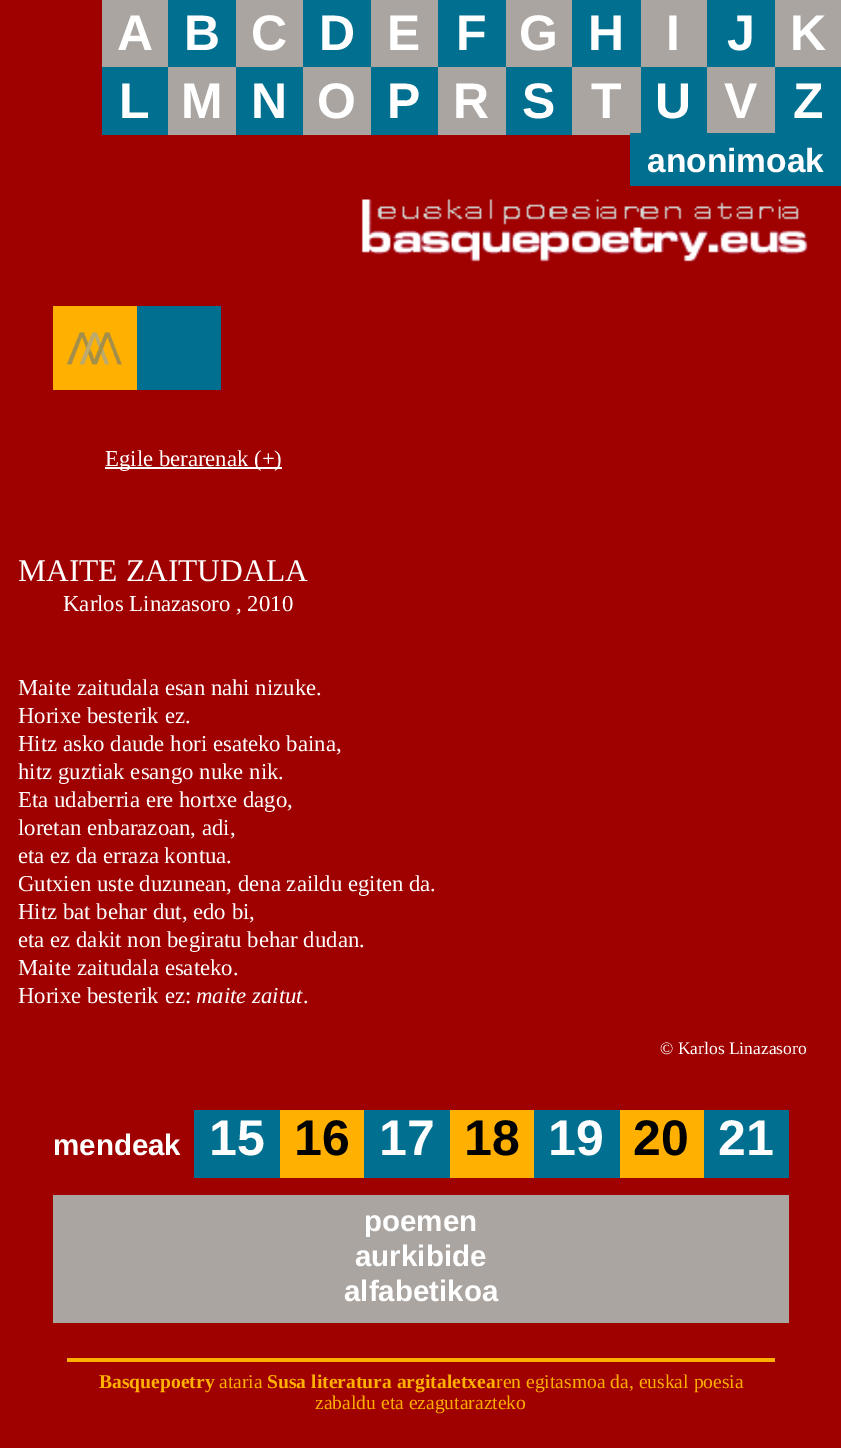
%!PS
<< /PageSize [841 1448] >> setpagedevice
/C { dup -16 bitshift 255 div exch dup -8 bitshift 255 and 255 div exch 255 and 255 div setrgbcolor } def
/F { [ exch dup neg 0 0 3 -1 roll 0 0 ] selectfont } def
/T { moveto show } def
/R { rectfill } def
/I { 5 dict begin { /h /w /y /x /name } { exch def } forall
  gsave x y translate w h scale
  w h 8 [w 0 0 h 0 0] name (r) file false 3 colorimage grestore end } def
0 1448 translate 1 -1 scale
4 setmiterlimit
16#9F0000 C
0 0 841 1448 R
16#ABA5A1 C
102 0 66 67 R
/LiberationSans-Bold 50 F
16#FFFFFF C
(A) 117 50 T
16#006F90 C
168 0 68 67 R
16#FFFFFF C
(B) 184 50 T
16#ABA5A1 C
236 0 67 67 R
16#FFFFFF C
(C) 251 50 T
16#006F90 C
303 0 68 67 R
16#FFFFFF C
(D) 319 50 T
16#ABA5A1 C
371 0 67 67 R
16#FFFFFF C
(E) 387 50 T
16#006F90 C
438 0 68 67 R
16#FFFFFF C
(F) 456 50 T
16#ABA5A1 C
506 0 66 67 R
16#FFFFFF C
(G) 519 50 T
16#006F90 C
572 0 69 67 R
16#FFFFFF C
(H) 588 50 T
16#ABA5A1 C
641 0 66 67 R
16#FFFFFF C
(I) 666 50 T
16#006F90 C
707 0 68 67 R
16#FFFFFF C
(J) 727 50 T
16#ABA5A1 C
775 0 66 67 R
16#FFFFFF C
(K) 790 50 T
16#006F90 C
102 67 66 68 R
16#FFFFFF C
(L) 119 118 T
16#ABA5A1 C
168 67 68 68 R
16#FFFFFF C
(M) 181 118 T
16#006F90 C
236 67 67 68 R
16#FFFFFF C
(N) 251 118 T
16#ABA5A1 C
303 67 68 68 R
16#FFFFFF C
(O) 317 118 T
16#006F90 C
371 67 67 68 R
16#FFFFFF C
(P) 387 118 T
16#ABA5A1 C
438 67 68 68 R
16#FFFFFF C
(R) 453 118 T
16#006F90 C
506 67 66 68 R
16#FFFFFF C
(S) 522 118 T
16#ABA5A1 C
572 67 69 68 R
16#FFFFFF C
(T) 591 118 T
16#006F90 C
641 67 66 66 R
16#FFFFFF C
(U) 655 118 T
16#ABA5A1 C
707 67 68 66 R
16#FFFFFF C
(V) 724 118 T
16#006F90 C
775 67 66 66 R
16#FFFFFF C
(Z) 793 118 T
16#006F90 C
630 133 211 53 R
/LiberationSans-Bold 33.5 F
16#FFFFFF C
(anonimoak) 647 172 T
(1.rgb) 361 199 447 63 I
16#FFB000 C
53 306 84 84 R
(2.rgb) 66 332 56 33 I
16#006F90 C
137 306 84 84 R
16#FFFFFF C
105 467 177 2 R
/LiberationSerif-Regular 22.75 F
(Egile berarenak \(+\)) 105 466 T
/LiberationSerif-Regular 31.5 F
(MAITE ZAITUDALA) 18 581 T
/LiberationSerif-Regular 22.75 F
(Karlos Linazasoro , 2010) 63 611 T
(Maite zaitudala esan nahi nizuke.) 18 695 T
(Horixe besterik ez.) 18 723 T
(Hitz asko daude hori esateko baina,) 18 751 T
(hitz guztiak esango nuke nik.) 18 779 T
(Eta udaberria ere hortxe dago,) 18 807 T
(loretan enbarazoan, adi,) 18 835 T
(eta ez da erraza kontua.) 18 863 T
(Gutxien uste duzunean, dena zaildu egiten da.) 18 891 T
(Hitz bat behar dut, edo bi,) 18 919 T
(eta ez dakit non begiratu behar dudan.) 18 947 T
(Maite zaitudala esateko.) 18 975 T
(Horixe besterik ez:) 18 1003 T
/LiberationSerif-Italic 22.75 F
(maite zaitut) 196 1003 T
/LiberationSerif-Regular 22.75 F
(.) 303 1003 T
/LiberationSerif-Regular 17.5 F
(© Karlos Linazasoro) 660 1054 T
/LiberationSans-Bold 29.5 F
(mendeak) 53 1155 T
16#006F90 C
194 1110 86 68 R
/LiberationSans-Bold 50 F
16#FFFFFF C
(15) 209 1155 T
16#FFB000 C
280 1110 84 68 R
16#000000 C
(16) 294 1155 T
16#006F90 C
364 1110 86 68 R
16#FFFFFF C
(17) 379 1155 T
16#FFB000 C
450 1110 84 68 R
16#000000 C
(18) 464 1155 T
16#006F90 C
534 1110 86 68 R
16#FFFFFF C
(19) 548 1155 T
16#FFB000 C
620 1110 84 68 R
16#000000 C
(20) 633 1155 T
16#006F90 C
704 1110 85 68 R
16#FFFFFF C
(21) 718 1155 T
16#ABA5A1 C
53 1195 736 128 R
/LiberationSans-Bold 29.5 F
16#FFFFFF C
(poemen) 364 1231 T
(aurkibide) 355 1266 T
(alfabetikoa) 344 1301 T
16#FFB000 C
67 1358 708 4 R
/LiberationSerif-Bold 19.6 F
(Basquepoetry) 99 1388 T
/LiberationSerif-Regular 19.6 F
(ataria) 219 1388 T
/LiberationSerif-Bold 19.6 F
(Susa literatura argitaletxea) 267 1388 T
/LiberationSerif-Regular 19.6 F
(ren egitasmoa da, euskal poesia) 496 1388 T
(zabaldu eta ezagutarazteko) 315 1409 T
showpage
